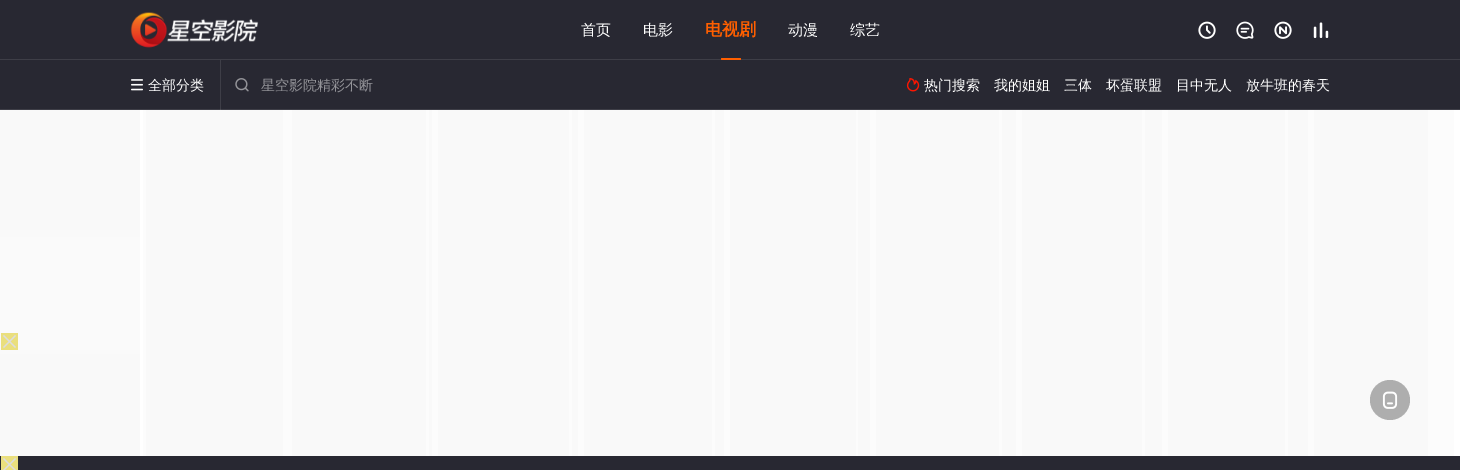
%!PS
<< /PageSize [1460 470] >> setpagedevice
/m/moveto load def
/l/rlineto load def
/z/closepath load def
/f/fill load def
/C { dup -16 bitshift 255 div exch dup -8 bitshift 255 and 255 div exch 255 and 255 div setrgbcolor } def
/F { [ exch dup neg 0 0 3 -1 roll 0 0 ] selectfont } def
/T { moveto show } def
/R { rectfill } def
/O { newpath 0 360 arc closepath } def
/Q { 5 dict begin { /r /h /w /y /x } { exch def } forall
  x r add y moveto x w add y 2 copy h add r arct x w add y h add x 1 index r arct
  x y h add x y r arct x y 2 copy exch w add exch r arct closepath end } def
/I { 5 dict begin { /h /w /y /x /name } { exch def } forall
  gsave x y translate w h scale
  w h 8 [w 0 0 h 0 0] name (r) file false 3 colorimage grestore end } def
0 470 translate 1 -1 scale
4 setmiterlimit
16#FFFFFF C
0 0 1460 470 R
16#FCFCFC C
1428 110 26 346 R
1285 110 3 346 R
1142 110 3 346 R
999 110 3 346 R
856 110 2 346 R
712 110 3 346 R
569 110 3 346 R
426 110 3 346 R
283 110 3 346 R
1308 349 6 107 R
16#F9F9F9 C
1314 349 114 107 R
1288 349 20 107 R
16#FCFCFC C
1162 349 6 107 R
16#F9F9F9 C
1168 349 117 107 R
1145 349 17 107 R
16#FCFCFC C
1016 349 6 107 R
16#F9F9F9 C
1022 349 120 107 R
1002 349 14 107 R
16#FCFCFC C
870 349 6 107 R
16#F9F9F9 C
876 349 123 107 R
858 349 12 107 R
16#FCFCFC C
724 349 6 107 R
16#F9F9F9 C
730 349 126 107 R
715 349 9 107 R
16#FCFCFC C
578 349 6 107 R
16#F9F9F9 C
584 349 128 107 R
572 349 6 107 R
16#FCFCFC C
432 349 6 107 R
16#F9F9F9 C
438 349 131 107 R
429 349 3 107 R
16#FCFCFC C
286 349 6 107 R
16#F9F9F9 C
292 349 134 107 R
16#FCFCFC C
143 349 3 107 R
16#F9F9F9 C
146 349 137 107 R
0 354 140 102 R
16#282832 C
0 0 1460 109 R
16#3E3E47 C
0 109 1460 1 R
(1.rgb) 130 12 129 36 I
/WenQuanYiZenHei-Medium 15 F
16#FFFFFF C
(首页) 581 35 T
(电影) 643 35 T
/WenQuanYiZenHei-Bold 17 F
16#FF5F00 C
(电视剧) 705 35 T
16#3E3E47 C
0 59 1460 1 R
16#FF5F00 C
721 58 20 2 1 Q f
/WenQuanYiZenHei-Medium 15 F
16#FFFFFF C
(动漫) 788 35 T
(综艺) 850 35 T
(2.rgb) 1198 21 18 18 I
(3.rgb) 1236 21 18 18 I
(4.rgb) 1274 21 18 18 I
(5.rgb) 1313 22 16 16 I
16#3E3E47 C
220 60 1 50 R
16#515159 C
220 109 1 1 R
(6.rgb) 131 79 12 12 I
/WenQuanYiZenHei-Medium 14 F
16#FFFFFF C
(全部分类) 148 90 T
(7.rgb) 235 78 14 14 I
16#949499 C
(星空影院精彩不断) 261 90 T
(8.rgb) 906 78 14 14 I
16#FFFFFF C
(热门搜索) 924 90 T
(我的姐姐) 994 90 T
(三体) 1064 90 T
(坏蛋联盟) 1106 90 T
(目中无人) 1176 90 T
(放牛班的春天) 1246 90 T
16#F9F9F9 C
0 110 140 127 R
16#FCFCFC C
143 110 3 239 R
16#F9F9F9 C
146 110 137 239 R
16#FCFCFC C
286 110 6 239 R
16#F9F9F9 C
292 110 134 239 R
16#FCFCFC C
432 110 6 239 R
16#F9F9F9 C
438 110 131 239 R
429 110 3 239 R
16#FCFCFC C
578 110 6 239 R
16#F9F9F9 C
584 110 128 239 R
572 110 6 239 R
16#FCFCFC C
724 110 6 239 R
16#F9F9F9 C
730 110 126 239 R
715 110 9 239 R
16#FCFCFC C
870 110 6 239 R
16#F9F9F9 C
876 110 123 239 R
858 110 12 239 R
16#FCFCFC C
1016 110 6 239 R
16#F9F9F9 C
1022 110 120 239 R
1002 110 14 239 R
16#FCFCFC C
1162 110 6 239 R
16#F9F9F9 C
1168 110 117 239 R
1145 110 17 239 R
16#FCFCFC C
1308 110 6 239 R
16#F9F9F9 C
1314 110 114 239 R
1288 110 20 239 R
16#FAFAFA C
0 237 140 117 R
16#EADF7D C
1 333 17 17 R
16#DDDDDD C
4 335 m 12 12 l -1 1 l -12 -12 l z f
3 347 m 12 -12 l 1 1 l -12 12 l z f
16#AEAEAE C
1390 400 20 O f
(9.rgb) 1382 391 16 18 I
16#282832 C
140 456 1320 14 R
0 456 140 14 R
16#EADF7D C
1 456 17 14 R
16#DDDDDD C
4 458 m 12 12 l -1 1 l -12 -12 l z f
3 470 m 12 -12 l 1 1 l -12 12 l z f
showpage
